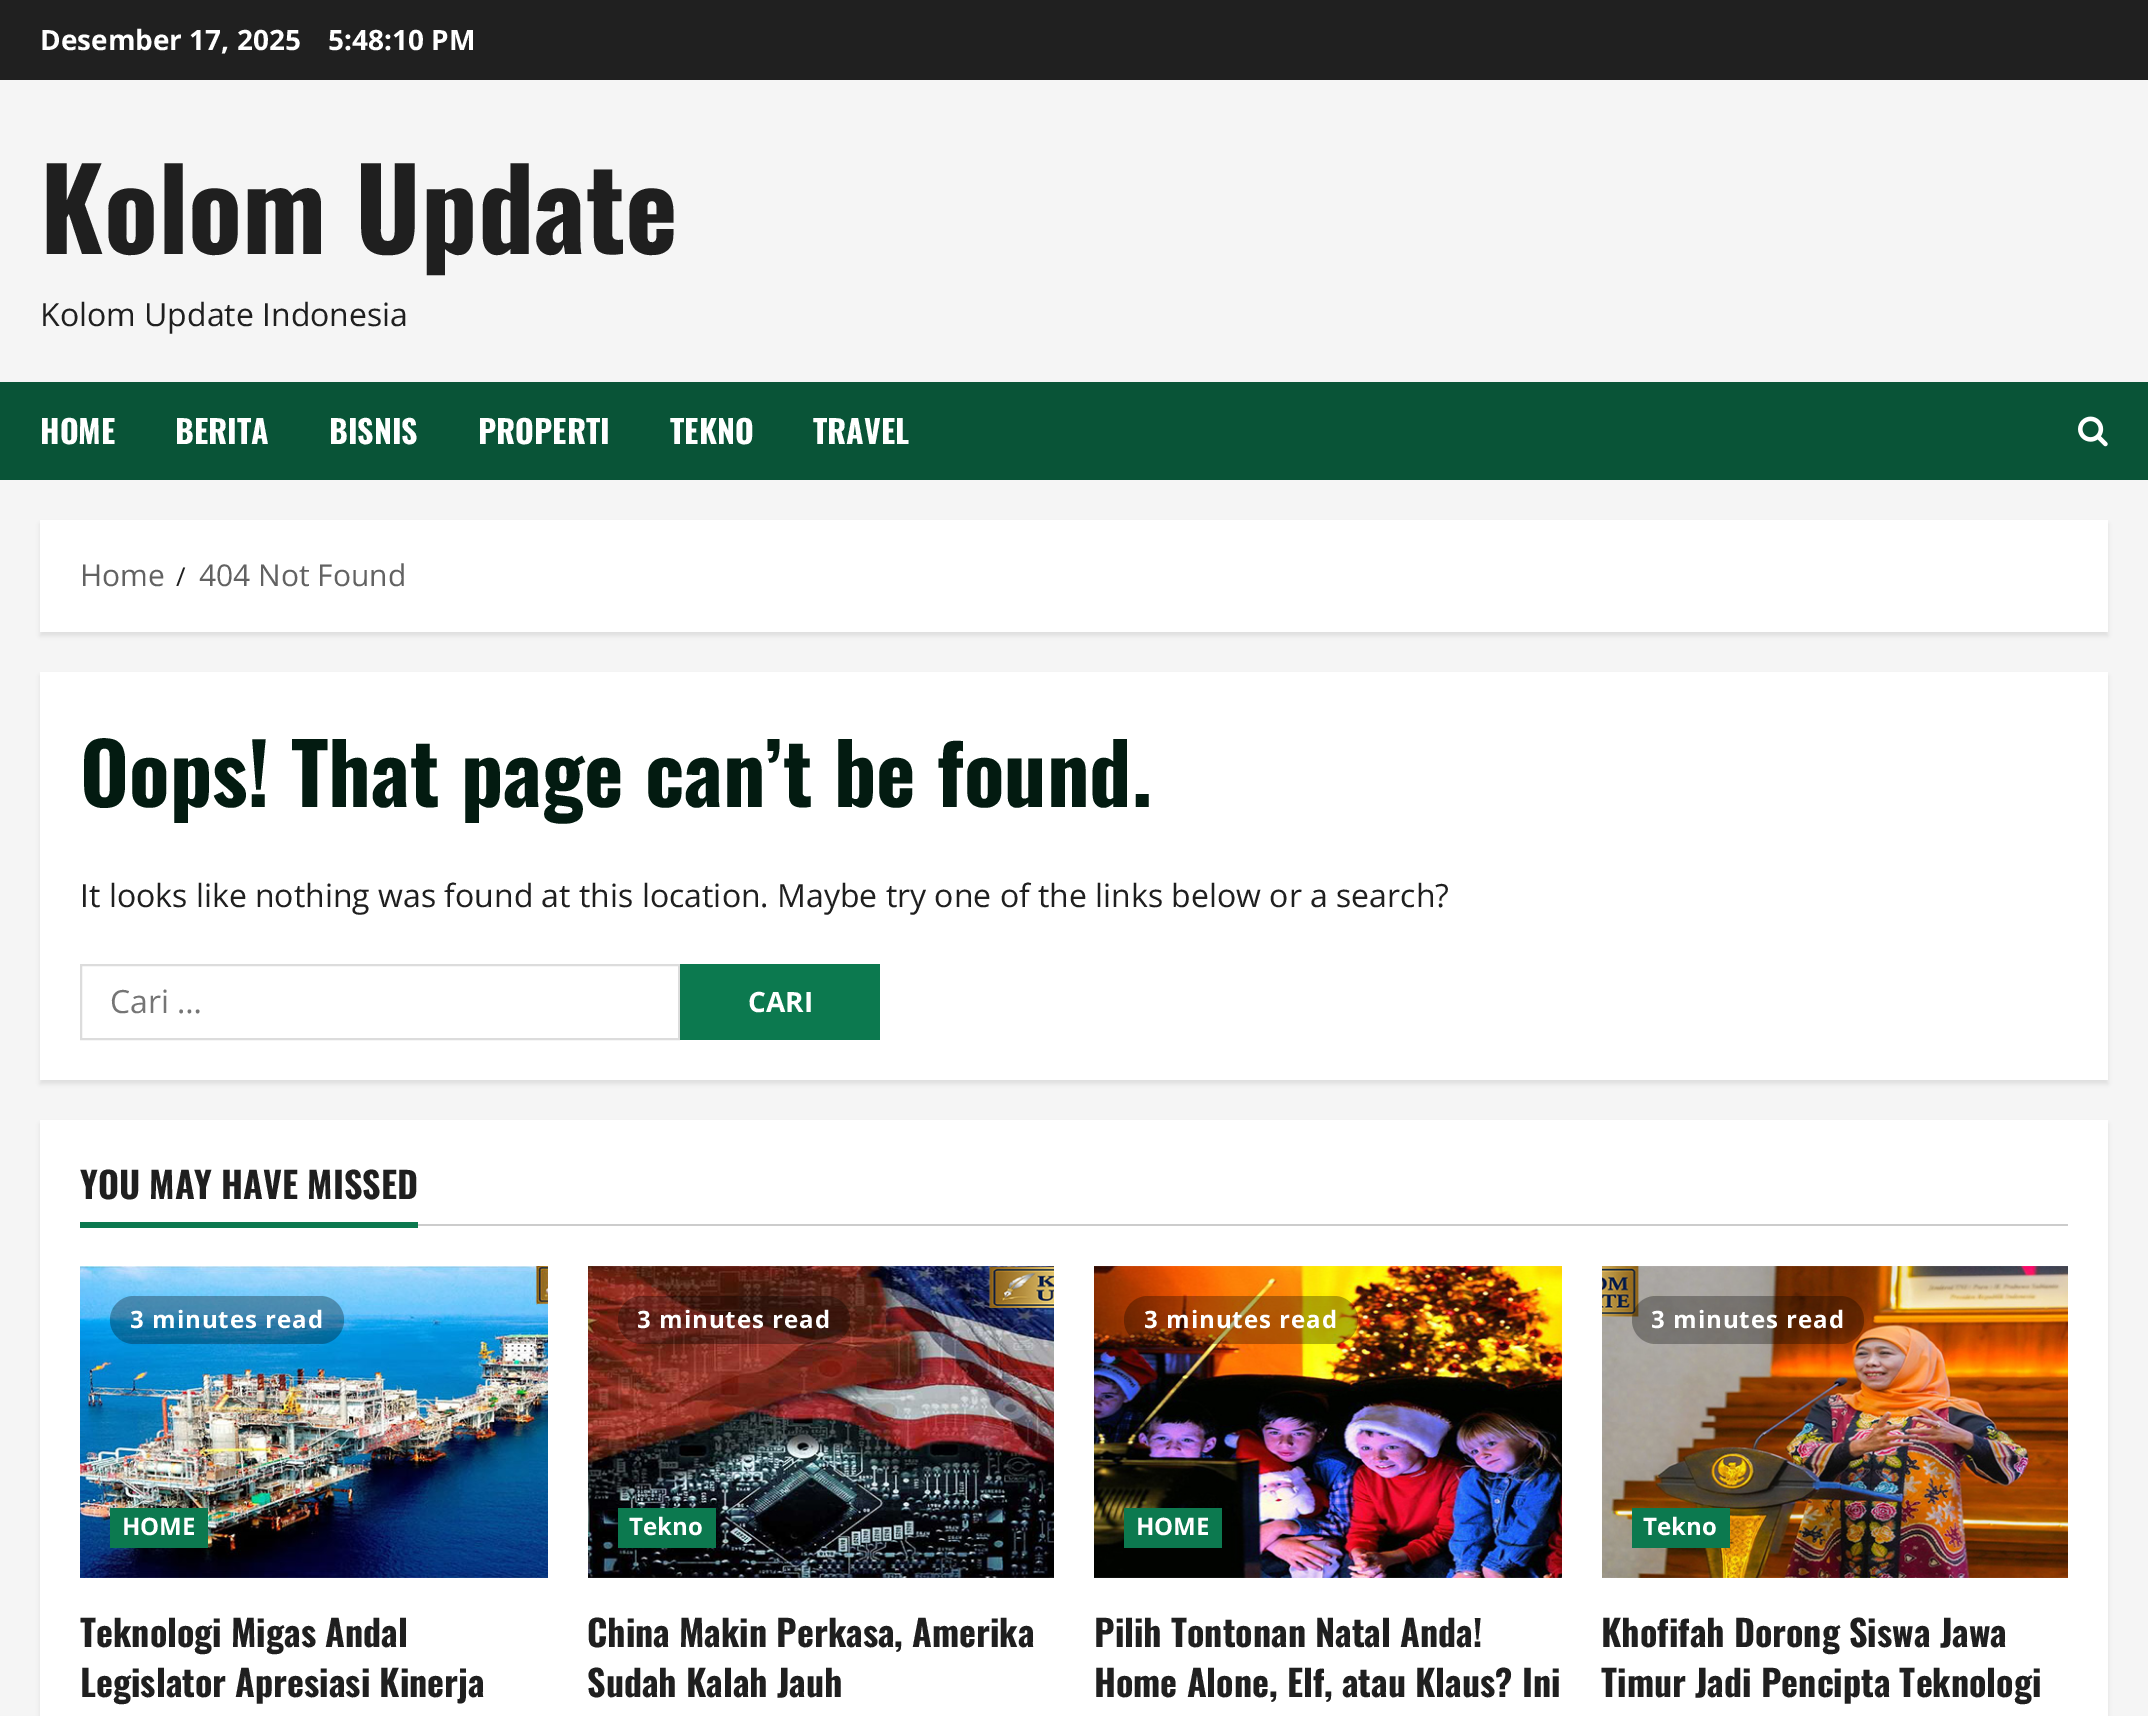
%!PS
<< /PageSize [2148 1716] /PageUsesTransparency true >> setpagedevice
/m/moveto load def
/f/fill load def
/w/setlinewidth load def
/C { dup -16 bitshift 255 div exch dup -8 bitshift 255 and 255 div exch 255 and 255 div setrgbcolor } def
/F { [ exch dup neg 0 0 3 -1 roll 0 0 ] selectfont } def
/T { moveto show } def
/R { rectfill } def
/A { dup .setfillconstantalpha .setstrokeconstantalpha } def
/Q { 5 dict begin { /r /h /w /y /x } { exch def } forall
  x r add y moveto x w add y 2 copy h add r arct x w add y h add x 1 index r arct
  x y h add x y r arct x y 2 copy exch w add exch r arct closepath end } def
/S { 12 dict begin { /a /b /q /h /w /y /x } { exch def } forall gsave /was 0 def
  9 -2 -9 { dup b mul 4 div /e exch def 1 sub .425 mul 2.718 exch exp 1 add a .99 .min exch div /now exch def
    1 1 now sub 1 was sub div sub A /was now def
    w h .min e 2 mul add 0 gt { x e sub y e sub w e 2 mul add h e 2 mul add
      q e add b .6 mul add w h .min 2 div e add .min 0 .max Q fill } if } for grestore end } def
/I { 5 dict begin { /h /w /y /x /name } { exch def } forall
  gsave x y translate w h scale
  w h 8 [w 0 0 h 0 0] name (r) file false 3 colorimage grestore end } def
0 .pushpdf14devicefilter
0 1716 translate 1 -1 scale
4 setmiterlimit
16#F5F5F5 C
0 0 2148 1716 R
16#202020 C
0 0 2148 80 R
/OpenSans-Bold 28 F
16#FFFFFF C
(Desember 17, 2025) 40 50 T
(5:48:10 PM) 328 50 T
/Oswald-Bold 112 F
16#1F1F1F C
(Kolom Update) 40 254 T
/OpenSans-Regular 32 F
(Kolom Update Indonesia) 40 326 T
16#095437 C
0 382 2148 98 R
/Oswald-Bold 32 F
16#FFFFFF C
(HOME) 40 444 T
(BERITA) 175 444 T
(BISNIS) 329 444 T
(PROPERTI) 478 444 T
(TEKNO) 670 444 T
(TRAVEL) 813 444 T
(1.rgb) 2078 416 30 31 I
16#000000 C
40 524 2068 112 0 2 .08 S
16#FFFFFF C
40 520 2068 112 R
/OpenSans-Regular 30 F
16#626262 C
(Home) 80 586 T
/OpenSans-Regular 26 F
16#1F1F1F C
(/) 176 586 T
/OpenSans-Regular 30 F
16#626262 C
(404 Not Found) 199 586 T
16#000000 C
40 676 2068 408 0 2 .08 S
16#FFFFFF C
40 672 2068 408 R
/Oswald-Bold 84 F
16#031B11 C
(Oops! That page can’t be found.) 80 807 T
/OpenSans-Regular 32 F
16#1F1F1F C
(It looks like nothing was found at this location. Maybe try one of the links below or a search?) 80 907 T
16#DCDCDC C
2 w
81 965 598 74 rectstroke
16#757575 C
(Cari …) 110 1013 T
16#0C794F C
680 964 200 76 R
/OpenSans-Bold 28 F
16#FFFFFF C
(CARI) 748 1012 T
16#000000 C
40 1124 2068 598 0 2 .08 S
16#FFFFFF C
40 1120 2068 596 R
16#CCCCCC C
418 1224 1650 2 R
/Oswald-Bold 36 F
16#1F1F1F C
(YOU MAY HAVE MISSED) 80 1199 T
16#0C794F C
80 1222 338 6 R
(2.rgb) 80 1266 468 312 I
0.3 A
16#000000 C
110 1296 234 48 24 Q f
/OpenSans-Bold 24 F
1 A
16#FFFFFF C
130 1328 m 1 0 (3 minutes read) ashow
16#0C794F C
110 1508 98 40 R
16#FFFFFF C
(HOME) 122 1535 T
/Oswald-Bold 36 F
16#1F1F1F C
(Teknologi Migas Andal) 80 1647 T
(Legislator Apresiasi Kinerja) 80 1697 T
(3.rgb) 588 1266 466 312 I
0.3 A
16#000000 C
618 1296 232 48 24 Q f
/OpenSans-Bold 24 F
1 A
16#FFFFFF C
637 1328 m 1 0 (3 minutes read) ashow
16#0C794F C
618 1508 98 40 R
16#FFFFFF C
(Tekno) 629 1535 T
/Oswald-Bold 36 F
16#1F1F1F C
(China Makin Perkasa, Amerika) 587 1647 T
(Sudah Kalah Jauh) 587 1697 T
(4.rgb) 1094 1266 468 312 I
0.3 A
16#000000 C
1124 1296 234 48 24 Q f
/OpenSans-Bold 24 F
1 A
16#FFFFFF C
1144 1328 m 1 0 (3 minutes read) ashow
16#0C794F C
1124 1508 98 40 R
16#FFFFFF C
(HOME) 1136 1535 T
/Oswald-Bold 36 F
16#1F1F1F C
(Pilih Tontonan Natal Anda!) 1094 1647 T
(Home Alone, Elf, atau Klaus? Ini) 1094 1697 T
(5.rgb) 1602 1266 466 312 I
0.3 A
16#000000 C
1632 1296 232 48 24 Q f
/OpenSans-Bold 24 F
1 A
16#FFFFFF C
1651 1328 m 1 0 (3 minutes read) ashow
16#0C794F C
1632 1508 98 40 R
16#FFFFFF C
(Tekno) 1643 1535 T
/Oswald-Bold 36 F
16#1F1F1F C
(Khofifah Dorong Siswa Jawa) 1601 1647 T
(Timur Jadi Pencipta Teknologi) 1601 1697 T
.poppdf14devicefilter showpage
